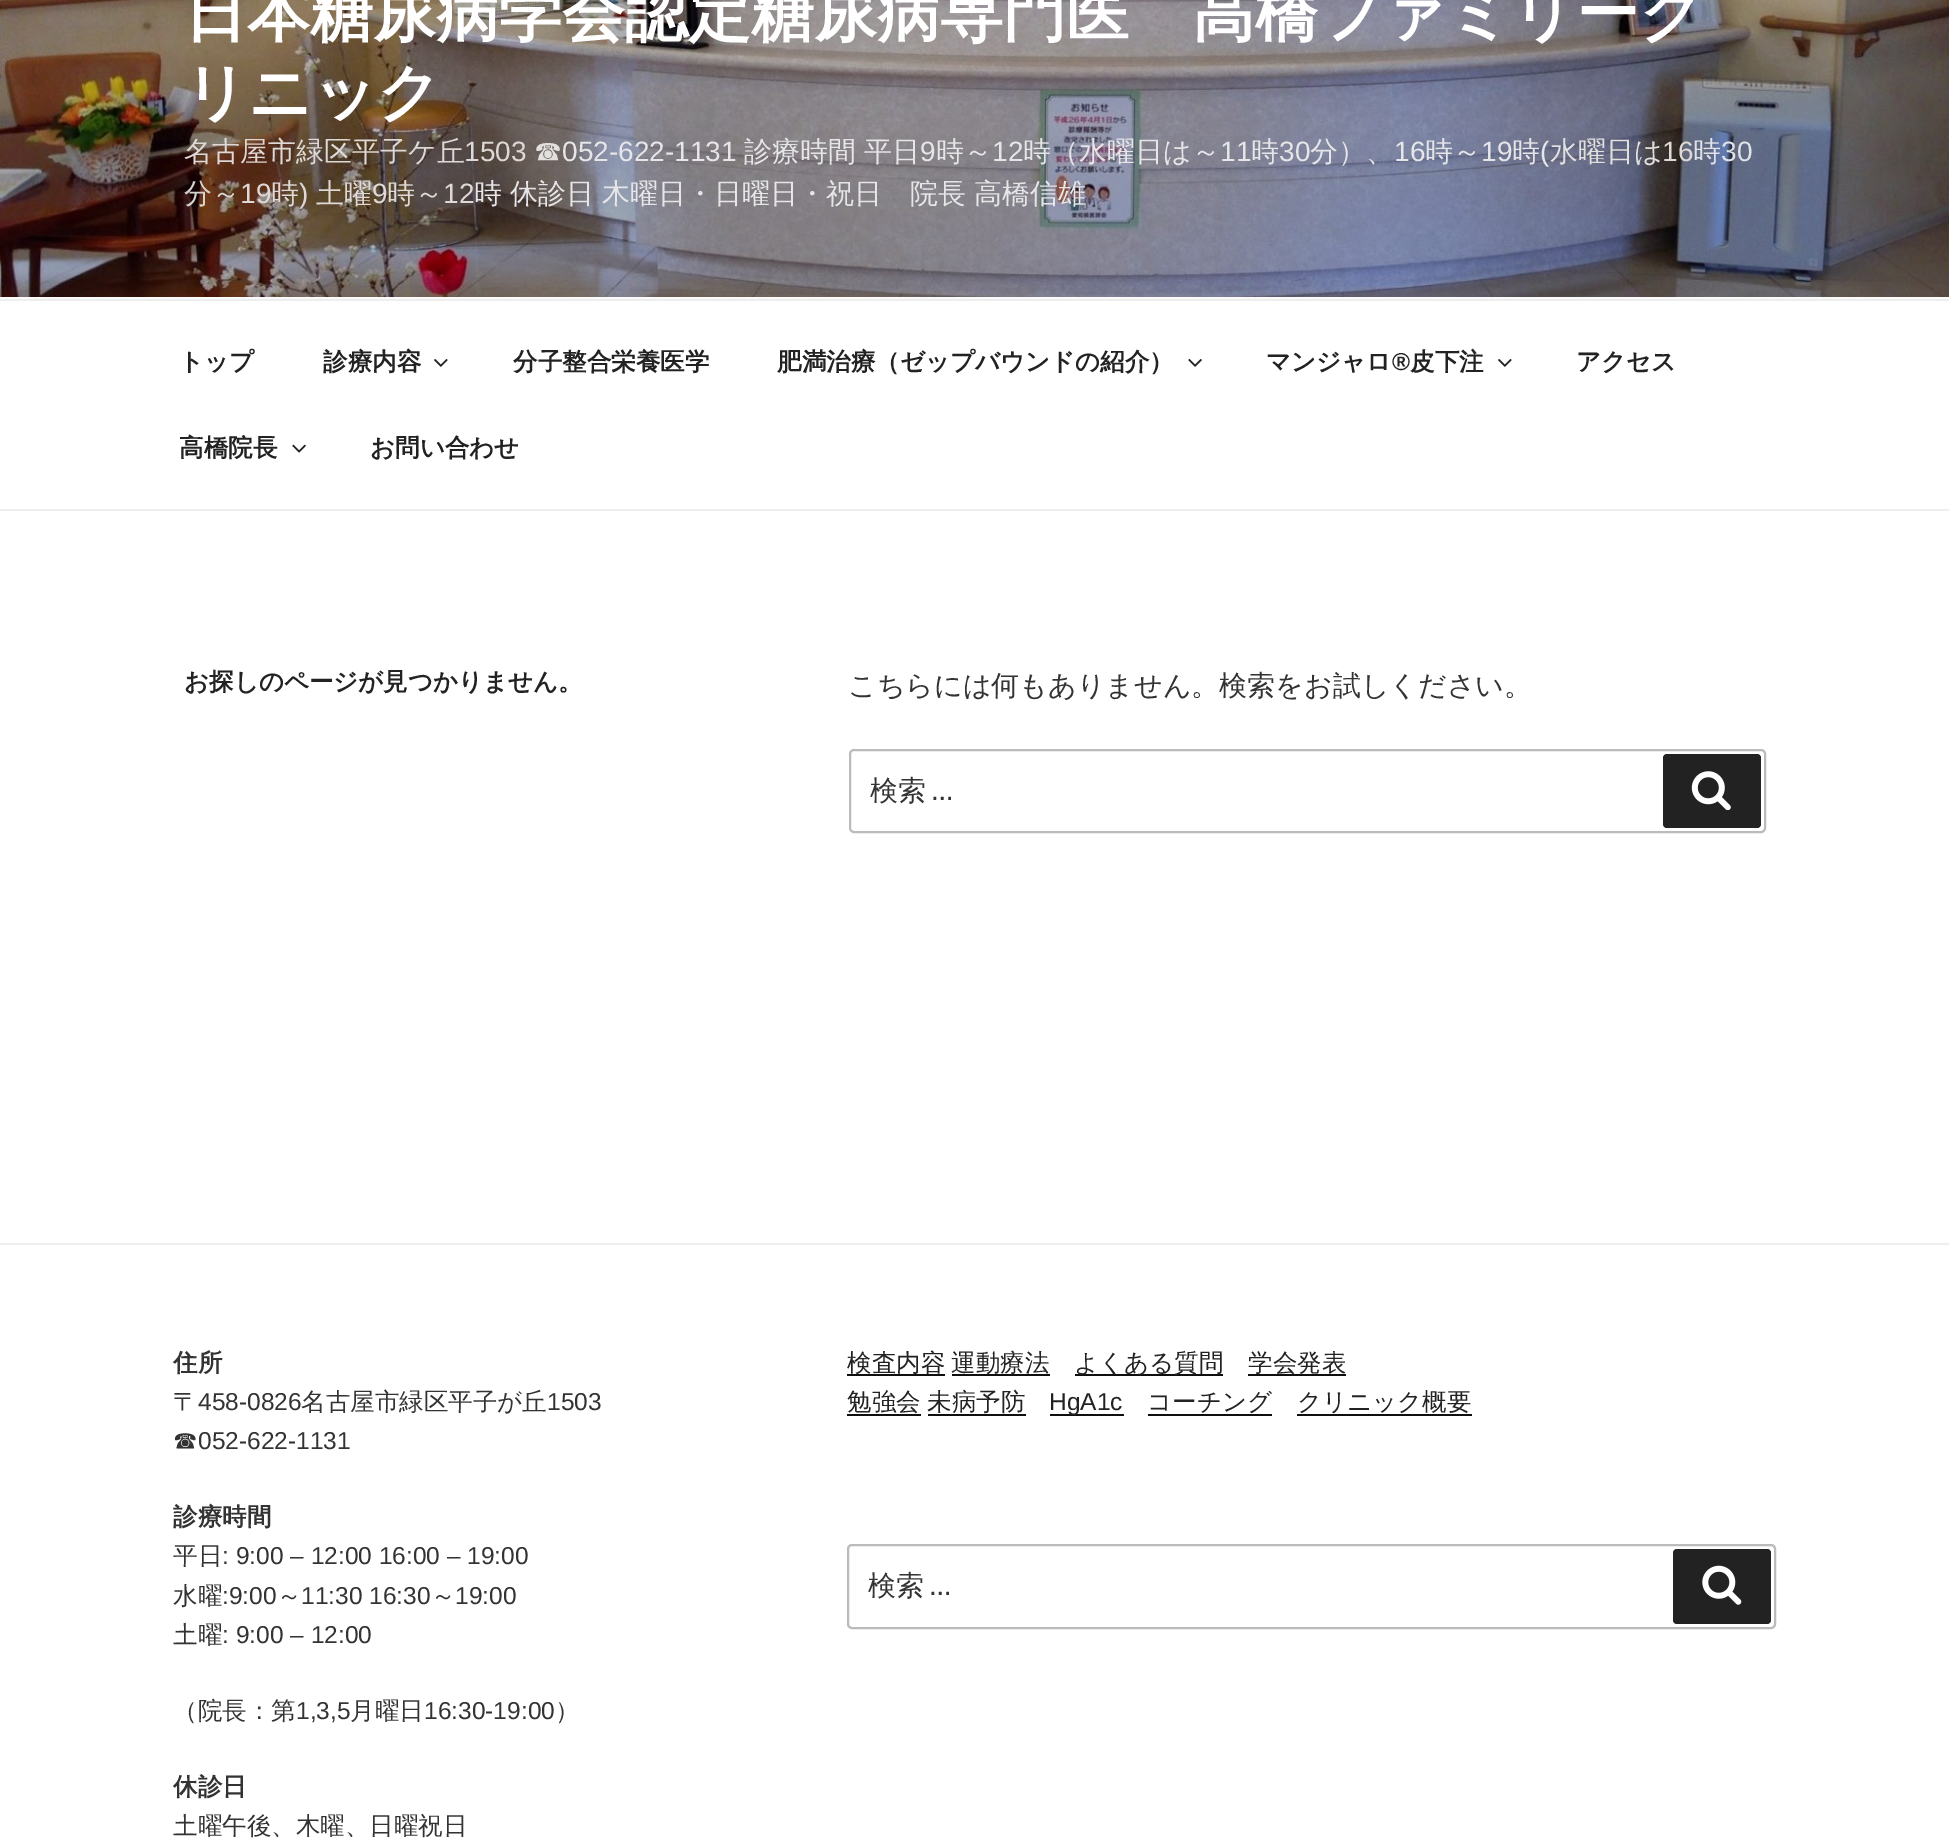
%!PS
<< /PageSize [1949 1845] >> setpagedevice
/m/moveto load def
/f/fill load def
/s/stroke load def
/w/setlinewidth load def
/C { dup -16 bitshift 255 div exch dup -8 bitshift 255 and 255 div exch 255 and 255 div setrgbcolor } def
/F { [ exch dup neg 0 0 3 -1 roll 0 0 ] selectfont } def
/T { moveto show } def
/R { rectfill } def
/Q { 5 dict begin { /r /h /w /y /x } { exch def } forall
  x r add y moveto x w add y 2 copy h add r arct x w add y h add x 1 index r arct
  x y h add x y r arct x y 2 copy exch w add exch r arct closepath end } def
/I { 5 dict begin { /h /w /y /x /name } { exch def } forall
  gsave x y translate w h scale
  w h 8 [w 0 0 h 0 0] name (r) file false 3 colorimage grestore end } def
0 1845 translate 1 -1 scale
4 setmiterlimit
16#FFFFFF C
0 0 1949 1845 R
16#FAFAFA C
0 297 1949 2 R
(1.rgb) 0 0 1949 297 I
/WenQuanYiZenHei-Bold 63 F
16#FFFFFF C
(日本糖尿病学会認定糖尿病専門医　高橋ファミリーク) 184 35 T
(リニック) 184 114 T
/WenQuanYiZenHei-Medium 28 F
16#DED9D6 C
(名古屋市緑区平子ケ丘) 184 161 T
/LiberationSans-Regular 28 F
(1503) 464 161 T
/WenQuanYiZenHei-Medium 28 F
16#E2E0DF C
(☎) 534 161 T
/LiberationSans-Regular 28 F
16#E6E6E8 C
(052-622-1131) 562 161 T
/WenQuanYiZenHei-Medium 28 F
(診療時間 平日) 744 161 T
/LiberationSans-Regular 28 F
(9) 920 161 T
/WenQuanYiZenHei-Medium 28 F
(時～) 936 161 T
/LiberationSans-Regular 28 F
(12) 992 161 T
/WenQuanYiZenHei-Medium 28 F
(時（水曜日は～) 1023 161 T
/LiberationSans-Regular 28 F
(11) 1220 161 T
/WenQuanYiZenHei-Medium 28 F
(時) 1251 161 T
/LiberationSans-Regular 28 F
(30) 1279 161 T
/WenQuanYiZenHei-Medium 28 F
(分）、) 1310 161 T
/LiberationSans-Regular 28 F
(16) 1394 161 T
/WenQuanYiZenHei-Medium 28 F
(時～) 1425 161 T
/LiberationSans-Regular 28 F
(19) 1481 161 T
/WenQuanYiZenHei-Medium 28 F
(時) 1512 161 T
/LiberationSans-Regular 28 F
(\() 1540 161 T
/WenQuanYiZenHei-Medium 28 F
16#E2E0DF C
(水曜日は) 1550 161 T
/LiberationSans-Regular 28 F
16#DED9D6 C
(16) 1662 161 T
/WenQuanYiZenHei-Medium 28 F
16#DFE2E8 C
(時) 1693 161 T
/LiberationSans-Regular 28 F
(30) 1721 161 T
/WenQuanYiZenHei-Medium 28 F
16#D9D3D0 C
(分～) 184 203 T
/LiberationSans-Regular 28 F
16#DED9D6 C
(19) 240 203 T
/WenQuanYiZenHei-Medium 28 F
(時) 271 203 T
/LiberationSans-Regular 28 F
(\)) 299 203 T
/WenQuanYiZenHei-Medium 28 F
(土曜) 316 203 T
/LiberationSans-Regular 28 F
(9) 372 203 T
/WenQuanYiZenHei-Medium 28 F
(時～) 387 203 T
/LiberationSans-Regular 28 F
(12) 443 203 T
/WenQuanYiZenHei-Medium 28 F
16#E6E6E8 C
474 203 m -.5 0 32 (時 休診日 木曜日・日曜日・祝日　院長 高橋信雄) widthshow
16#EEEEEE C
0 299 1949 2 R
0 509 1949 2 R
/WenQuanYiZenHei-Bold 24.5 F
16#222222 C
(トップ) 179 370 T
(診療内容) 323 370 T
(2.rgb) 434 359 14 8 I
(分子整合栄養医学) 513 370 T
(肥満治療（ゼップバウンドの紹介）) 777 370 T
(3.rgb) 1188 359 14 8 I
(マンジャロ) 1266 370 T
/LiberationSans-Bold 24.5 F
(®) 1392 370 T
/WenQuanYiZenHei-Bold 24.5 F
(皮下注) 1410 370 T
(2.rgb) 1498 359 14 8 I
(アクセス) 1576 370 T
(高橋院長) 179 456 T
(4.rgb) 292 444 14 9 I
(お問い合わせ) 370 456 T
(お探しのページが見つかりません。) 184 690 T
/WenQuanYiZenHei-Medium 28 F
16#333333 C
(こちらには何もありません。検索をお試しください。) 848 695 T
16#BBBBBB C
2 w
850 750 915 82 4 Q s
16#333333 C
(検索) 870 800 T
/LibreFranklin-Regular 28 F
(…) 932 800 T
16#222222 C
1663 754 98 74 4 Q f
(5.rgb) 1691 771 40 39 I
16#EEEEEE C
0 1243 1949 2 R
/WenQuanYiZenHei-Bold 24.5 F
16#333333 C
(住所) 173 1371 T
/WenQuanYiZenHei-Medium 24.5 F
(〒) 173 1410 T
/LiberationSans-Regular 24.5 F
(458-0826) 198 1410 T
/WenQuanYiZenHei-Medium 24.5 F
(名古屋市緑区平子が丘) 301 1410 T
/LiberationSans-Regular 24.5 F
(1503) 547 1410 T
/WenQuanYiZenHei-Medium 24.5 F
(☎) 173 1449 T
/LiberationSans-Regular 24.5 F
(052-622-1131) 198 1449 T
/WenQuanYiZenHei-Bold 24.5 F
(診療時間) 173 1525 T
/WenQuanYiZenHei-Medium 24.5 F
(平日) 173 1564 T
/LiberationSans-Regular 24.5 F
(: 9:00 – 12:00 16:00 – 19:00) 222 1564 T
/WenQuanYiZenHei-Medium 24.5 F
(水曜) 173 1604 T
/LiberationSans-Regular 24.5 F
(:9:00) 222 1604 T
/WenQuanYiZenHei-Medium 24.5 F
(～) 277 1604 T
/LiberationSans-Regular 24.5 F
(11:30 16:30) 301 1604 T
/WenQuanYiZenHei-Medium 24.5 F
(～) 431 1604 T
/LiberationSans-Regular 24.5 F
(19:00) 455 1604 T
/WenQuanYiZenHei-Medium 24.5 F
(土曜) 173 1643 T
/LiberationSans-Regular 24.5 F
(: 9:00 – 12:00) 222 1643 T
/WenQuanYiZenHei-Medium 24.5 F
(（院長：第) 173 1719 T
/LiberationSans-Regular 24.5 F
(1,3,5) 296 1719 T
/WenQuanYiZenHei-Medium 24.5 F
(月曜日) 350 1719 T
/LiberationSans-Regular 24.5 F
(16:30-19:00) 424 1719 T
/WenQuanYiZenHei-Medium 24.5 F
(）) 555 1719 T
/WenQuanYiZenHei-Bold 24.5 F
(休診日) 173 1795 T
/WenQuanYiZenHei-Medium 24.5 F
(土曜午後、木曜、日曜祝日) 173 1834 T
16#0F0F0F C
847 1374 98 2 R
16#222222 C
(検査内容) 847 1371 T
16#0F0F0F C
952 1374 98 2 R
16#222222 C
(運動療法) 951 1371 T
16#0F0F0F C
1075 1374 148 2 R
16#222222 C
(よくある質問) 1074 1371 T
16#0F0F0F C
1248 1374 98 2 R
16#222222 C
(学会発表) 1248 1371 T
(勉強会) 847 1410 T
16#0F0F0F C
847 1414 74 2 R
16#222222 C
(未病予防) 927 1410 T
16#0F0F0F C
928 1414 98 2 R
1050 1414 74 2 R
/LiberationSans-Regular 24.5 F
16#222222 C
(HgA1c) 1049 1410 T
/WenQuanYiZenHei-Medium 24.5 F
(コーチング) 1147 1410 T
16#0F0F0F C
1148 1414 124 2 R
16#222222 C
(クリニック概要) 1297 1410 T
16#0F0F0F C
1297 1414 175 2 R
16#BBBBBB C
848 1545 927 83 4 Q s
/WenQuanYiZenHei-Medium 28 F
16#333333 C
(検索) 868 1595 T
/LibreFranklin-Regular 28 F
(…) 930 1595 T
16#222222 C
1673 1549 98 75 4 Q f
(6.rgb) 1702 1565 40 40 I
showpage
